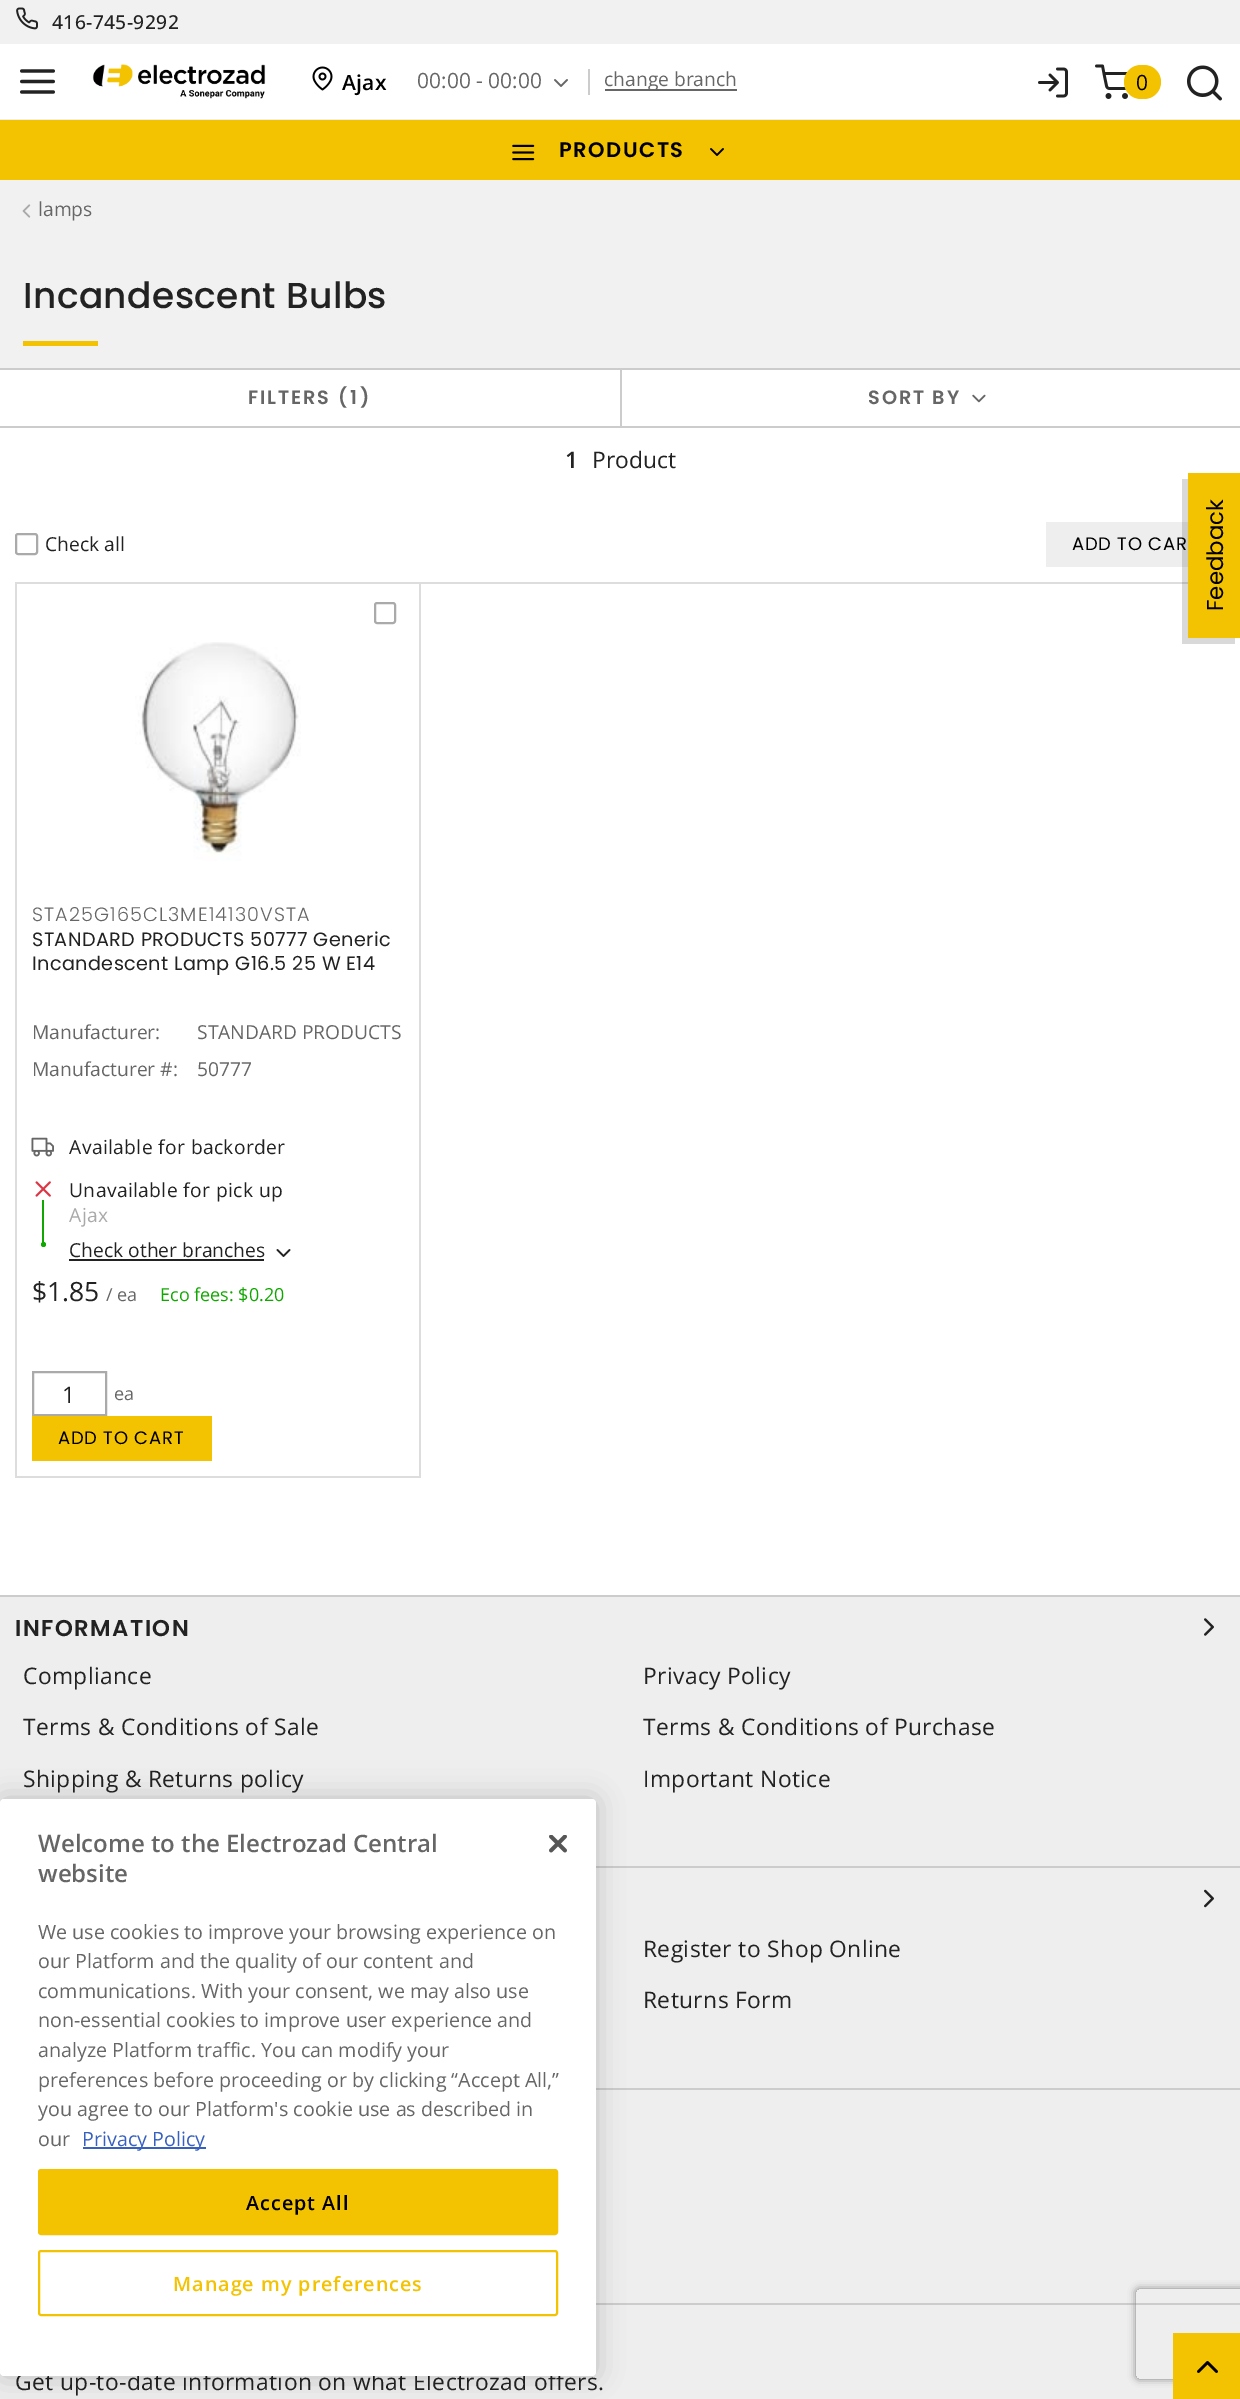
%!PS
<< /PageSize [1240 2399] /PageUsesTransparency true >> setpagedevice
/m/moveto load def
/l/rlineto load def
/c/rcurveto load def
/z/closepath load def
/f/fill load def
/s/stroke load def
/q/gsave load def
/Q_/grestore load def
/w/setlinewidth load def
/C { dup -16 bitshift 255 div exch dup -8 bitshift 255 and 255 div exch 255 and 255 div setrgbcolor } def
/F { [ exch dup neg 0 0 3 -1 roll 0 0 ] selectfont } def
/T { moveto show } def
/R { rectfill } def
/A { dup .setfillconstantalpha .setstrokeconstantalpha } def
/O { newpath 0 360 arc closepath } def
/Q { 5 dict begin { /r /h /w /y /x } { exch def } forall
  x r add y moveto x w add y 2 copy h add r arct x w add y h add x 1 index r arct
  x y h add x y r arct x y 2 copy exch w add exch r arct closepath end } def
/S { 12 dict begin { /a /b /q /h /w /y /x } { exch def } forall gsave /was 0 def
  9 -2 -9 { dup b mul 4 div /e exch def 1 sub .425 mul 2.718 exch exp 1 add a .99 .min exch div /now exch def
    1 1 now sub 1 was sub div sub A /was now def
    w h .min e 2 mul add 0 gt { x e sub y e sub w e 2 mul add h e 2 mul add
      q e add b .6 mul add w h .min 2 div e add .min 0 .max Q fill } if } for grestore end } def
/I { 5 dict begin { /h /w /y /x /name } { exch def } forall
  gsave x y translate w h scale
  w h 8 [w 0 0 h 0 0] name (r) file false 3 colorimage grestore end } def
0 .pushpdf14devicefilter
0 2399 translate 1 -1 scale
4 setmiterlimit
16#FFFFFF C
0 0 1240 2399 R
16#F1F1F1 C
0 0 1240 44 R
(1.rgb) 16 7 22 23 I
/OpenSans-Medium 19.25 F
16#222222 C
52 29 m .38 0 (416-745-9292) ashow
16#EEEEEE C
0 119 1240 1 R
(2.rgb) 92 64 174 35 I
(3.rgb) 312 66 21 25 I
/OpenSans-SemiBold 21 F
16#000000 C
342 90 m .38 0 (Ajax) ashow
16#CCCCCC C
588 69 2 26 R
/OpenSans-Regular 21 F
16#666666 C
(00:00 - 00:00) 417 88 T
(4.rgb) 554 79 14 8 I
605 89 132 2 R
/OpenSans-Regular 19.25 F
(change branch) 604 86 T
(5.rgb) 1038 67 30 31 I
(6.rgb) 1095 64 33 35 I
16#F3C200 C
1124 65 37 34 17 Q f
/OpenSans-Regular 21 F
16#000000 C
(0) 1136 90 T
(7.rgb) 1187 65 35 36 I
(8.rgb) 20 69 35 25 I
16#F3C200 C
0 120 1240 60 R
(9.rgb) 512 144 23 17 I
/Poppins-SemiBold 21 F
16#000000 C
559 157 m 1.5 0 (PRODUCTS) ashow
(10.rgb) 710 148 14 8 I
16#F1F1F1 C
0 180 1240 188 R
(11.rgb) 22 204 9 14 I
/OpenSans-Regular 19.25 F
16#666666 C
(lamps) 38 216 T
/Poppins-Medium 36 F
16#222222 C
23 308 m .38 0 (Incandescent Bulbs) ashow
16#F3C200 C
23 341 75 5 R
16#CCCCCC C
0 368 621 2 R
620 368 2 60 R
0 426 1240 2 R
/Poppins-SemiBold 19.25 F
16#666666 C
248 404 m 1.9 0 (FILTERS \() ashow
350 404 m 1.9 0 (1) ashow
360 404 m 1.9 0 (\)) ashow
16#CCCCCC C
621 368 619 2 R
16#666666 C
868 404 m 1.9 0 (SORT BY) ashow
(12.rgb) 972 394 14 9 I
/OpenSans-SemiBold 22.8 F
16#222222 C
(1) 565 468 T
/OpenSans-Regular 22.8 F
(Product) 592 468 T
16#AAAAAA C
2 w
16 534 21 20 2 Q s
/OpenSans-Regular 19.25 F
16#222222 C
(Check all) 45 551 T
16#EEEEEE C
1046 522 142 45 R
/Poppins-Regular 18 F
16#000000 C
1072 550 m .75 0 (ADD TO CAR) ashow
16#DDDDDD C
15 582 1173 2 R
15 582 2 896 R
419 584 2 894 R
17 1476 403 2 R
16#AAAAAA C
375 603 20 20 2 Q s
(13.rgb) 135 642 166 219 I
/Poppins-Light 19.25 F
16#666666 C
32 921 m 1.1 0 (STA25G165CL3ME14130VSTA) ashow
/Poppins-Regular 19.25 F
16#222222 C
32 946 m .38 0 (STANDARD PRODUCTS 50777 Generic) ashow
32 970 m .38 0 (Incandescent Lamp G16.5 25 W E14) ashow
/OpenSans-Regular 19.25 F
16#666666 C
(Manufacturer:) 32 1039 T
(STANDARD PRODUCTS) 197 1039 T
(Manufacturer #:) 32 1076 T
(50777) 197 1076 T
(14.rgb) 31 1137 23 20 I
16#222222 C
69 1154 m .38 0 (Available for backorder) ashow
(15.rgb) 35 1181 16 16 I
69 1197 m .38 0 (Unavailable for pick up) ashow
16#10A700 C
42 1200 2 45 R
16#AAAAAA C
69 1222 m .38 0 (Ajax) ashow
16#10A700 C
43.5 1244.5 2.5 O f
16#222222 C
(Check other branches) 69 1257 T
69 1259 195 2 R
(16.rgb) 276 1249 15 8 I
/OpenSans-Regular 26.5 F
($1.85) 32 1301 T
/OpenSans-Regular 18 F
16#666666 C
(/ ea) 106 1301 T
16#10A700 C
(Eco fees: $0.20) 160 1301 T
16#AAAAAA C
33 1372 73 43 rectstroke
/OpenSans-Regular 22.8 F
16#222222 C
(1) 62 1403 T
/OpenSans-Regular 18 F
16#666666 C
(ea) 114 1400 T
16#F3C200 C
32 1416 180 45 R
/Poppins-Regular 18 F
16#000000 C
58 1444 m .75 0 (ADD TO CART) ashow
0.15 A
1182 479 m 0 165 l 53 0 l 0 -6 l -47 0 l 0 -159 l z f
1 A
16#F3C200 C
1188 473 52 165 R
/Poppins-Regular 22.8 F
16#000000 C
q 1223 611 translate -90 rotate 0 0 m (Feedback) show Q_
16#EEEEEE C
0 1597 1240 802 R
16#CCCCCC C
0 1595 1240 2 R
596 1866 644 2 R
/Poppins-SemiBold 22.8 F
16#222222 C
15 1636 m 1.5 0 (INFORMATION) ashow
(17.rgb) 1204 1618 10 18 I
/OpenSans-Regular 22.8 F
23 1684 m .38 0 (Compliance) ashow
643 1684 m .38 0 (Privacy Policy) ashow
23 1735 m .38 0 (Terms & Conditions of Sale) ashow
643 1735 m .38 0 (Terms & Conditions of Purchase) ashow
23 1787 m .38 0 (Shipping & Returns policy) ashow
643 1787 m .38 0 (Important Notice) ashow
(18.rgb) 1204 1889 10 19 I
643 1957 m .38 0 (Register to Shop Online) ashow
643 2008 m .38 0 (Returns Form) ashow
16#CCCCCC C
596 2088 644 2 R
596 2303 644 2 R
16#222222 C
15 2390 m .38 0 (Get up-to-date information on what Electrozad offers.) ashow
q
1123 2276 m 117 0 l 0 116 l -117 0 l z 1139 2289 m 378 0 l 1.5 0 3 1.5 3 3 c 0 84 l 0 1.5 -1.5 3 -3 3 c -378 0 l -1.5 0 -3 -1.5 -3 -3 c 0 -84 l 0 -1.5 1.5 -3 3 -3 c z eoclip newpath
16#808080 C
1136 2289 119 90 3 4 1 S
Q_
16#F3C200 C
1173 2333 67 66 R
(19.rgb) 1197 2361 21 12 I
16#000000 C
0 1799 596 577 4 13.5 .2 S
16#FFFFFF C
0 1799 596 577 4 Q f
/OpenSans-SemiBold 24 F
16#666666 C
(Welcome to the Electrozad Central) 38 1852 T
(website) 38 1882 T
/OpenSans-Regular 19.7 F
(We use cookies to improve your browsing experience on) 38 1939 T
(our Platform and the quality of our content and) 38 1968 T
(communications. With your consent, we may also use) 38 1998 T
(non-essential cookies to improve user experience and) 38 2027 T
(analyze Platform traffic. You can modify your) 38 2057 T
(preferences before proceeding or by clicking “Accept All,”) 38 2087 T
(you agree to our Platform's cookie use as described in) 38 2116 T
(our) 38 2146 T
16#3860BE C
83 2147 123 2 R
(Privacy Policy) 82 2146 T
(20.rgb) 549 1835 18 18 I
16#F3C200 C
39 2170 518 64 2 Q q f Q_
s
/OpenSans-SemiBold 19.7 F
16#000000 C
246 2210 m 1 0 (Accept All) ashow
16#F3C200 C
39 2251 518 64 2 Q s
173 2291 m 1 0 (Manage my preferences) ashow
.poppdf14devicefilter showpage
